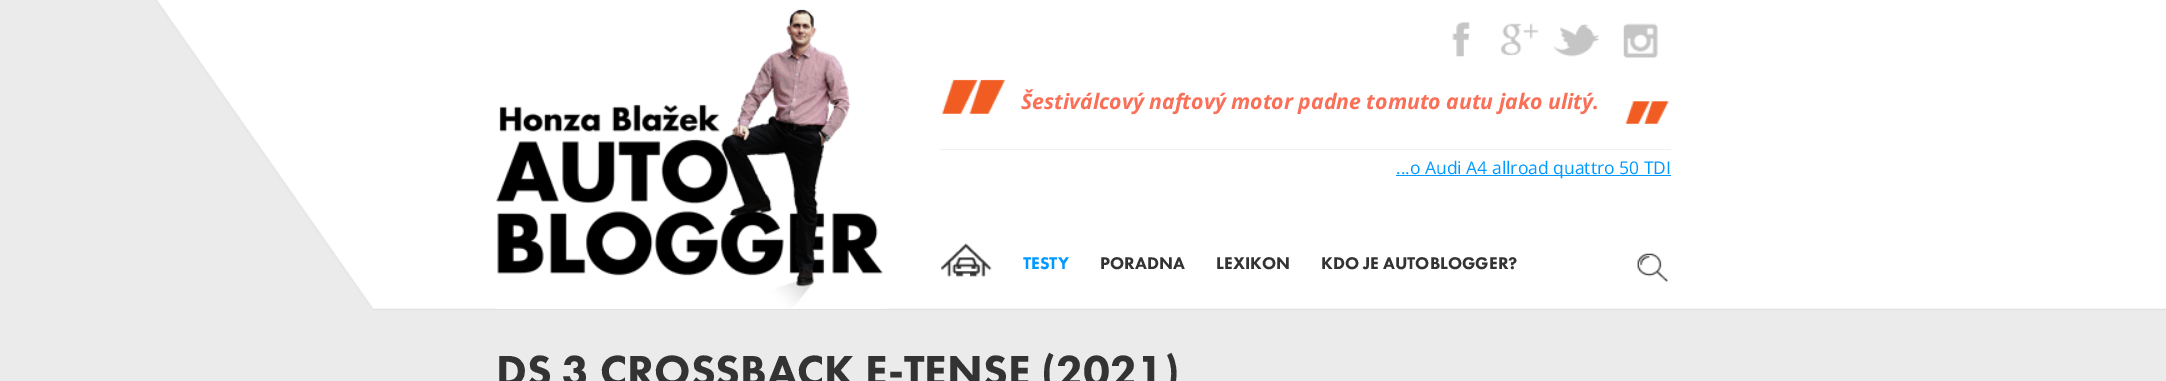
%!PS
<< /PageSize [2166 381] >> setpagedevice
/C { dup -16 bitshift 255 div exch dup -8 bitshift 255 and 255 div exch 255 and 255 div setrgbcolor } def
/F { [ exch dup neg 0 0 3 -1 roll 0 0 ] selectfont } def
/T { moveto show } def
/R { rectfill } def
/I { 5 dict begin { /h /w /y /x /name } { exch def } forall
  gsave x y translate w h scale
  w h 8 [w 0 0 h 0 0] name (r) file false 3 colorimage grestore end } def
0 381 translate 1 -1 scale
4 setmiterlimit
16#EBEBEB C
0 0 2166 381 R
(1.rgb) 156 0 2010 310 I
(2.rgb) 496 9 390 300 I
(3.rgb) 1452 22 18 35 I
(4.rgb) 1501 23 38 33 I
(5.rgb) 1553 23 46 34 I
(6.rgb) 1623 23 35 35 I
(7.rgb) 942 79 64 35 I
16#F1F1F1 C
940 149 731 1 R
(8.rgb) 1625 101 44 23 I
/OpenSans-BoldItalic 21.25 F
16#F96F57 C
(Šestiválcový naftový motor padne tomuto autu jako ulitý.) 1021 109 T
16#0099FF C
1396 175 275 1 R
/OpenSans-Regular 17.5 F
(...o Audi A4 allroad quattro 50 TDI) 1396 174 T
(9.rgb) 941 243 51 34 I
/FuturaPT-Black 17.5 F
(TESTY) 1023 269 T
16#333333 C
(PORADNA) 1100 269 T
(LEXIKON) 1216 269 T
(KDO JE AUTOBLOGGER?) 1321 269 T
(10.rgb) 1637 253 31 29 I
/FuturaPT-Black 45 F
(DS 3 CROSSBACK E-TENSE \(2021\)) 496 386 T
showpage
